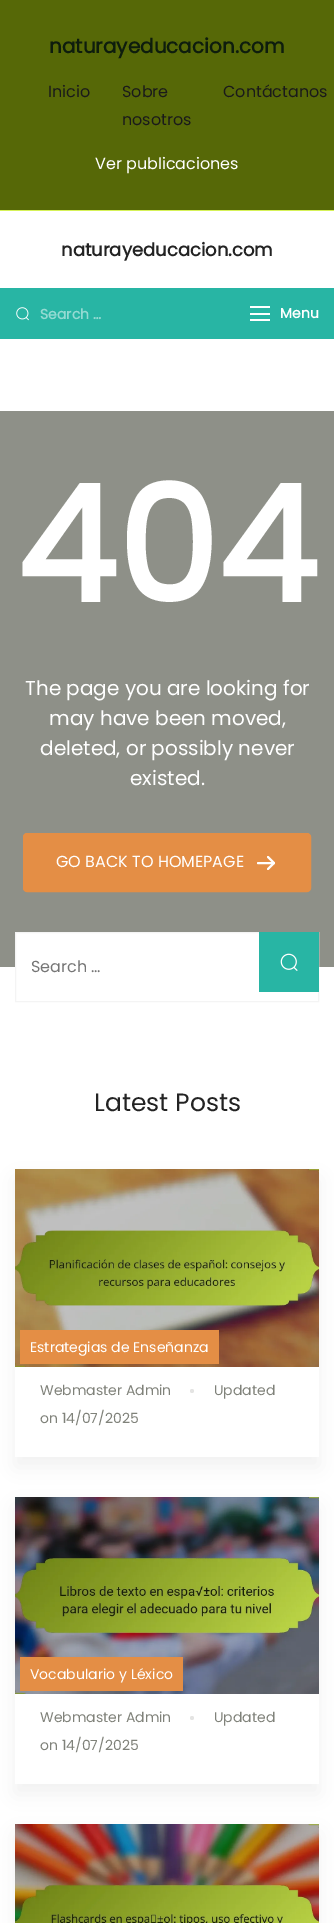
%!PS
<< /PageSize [334 1923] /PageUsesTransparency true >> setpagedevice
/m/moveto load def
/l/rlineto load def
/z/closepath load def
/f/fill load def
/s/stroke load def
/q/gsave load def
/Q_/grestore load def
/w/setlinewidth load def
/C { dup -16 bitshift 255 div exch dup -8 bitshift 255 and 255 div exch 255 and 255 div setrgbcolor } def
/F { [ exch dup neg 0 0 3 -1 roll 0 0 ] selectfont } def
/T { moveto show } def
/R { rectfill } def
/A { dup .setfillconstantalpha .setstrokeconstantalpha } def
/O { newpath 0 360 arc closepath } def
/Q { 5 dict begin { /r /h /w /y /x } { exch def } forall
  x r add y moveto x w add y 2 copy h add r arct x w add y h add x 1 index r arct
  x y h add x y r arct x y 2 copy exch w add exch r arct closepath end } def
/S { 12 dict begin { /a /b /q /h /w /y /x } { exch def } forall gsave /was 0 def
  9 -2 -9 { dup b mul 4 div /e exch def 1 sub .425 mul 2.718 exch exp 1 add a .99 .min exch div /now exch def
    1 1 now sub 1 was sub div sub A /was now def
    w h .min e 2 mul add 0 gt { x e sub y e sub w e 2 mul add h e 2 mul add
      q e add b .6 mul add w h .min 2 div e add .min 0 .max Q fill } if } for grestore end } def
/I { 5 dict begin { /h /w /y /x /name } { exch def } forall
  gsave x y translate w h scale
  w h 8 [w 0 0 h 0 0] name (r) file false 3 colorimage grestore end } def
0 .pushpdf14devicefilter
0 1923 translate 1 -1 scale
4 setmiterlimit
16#FFFFFF C
0 0 334 1923 R
16#566807 C
0 0 334 210 R
16#D6F258 C
0 210 334 1 R
/Poppins-Bold 20 F
16#0E1D0D C
(naturayeducacion.com) 49 53 T
/Poppins-Regular 16 F
16#1A1A1A C
(Inicio) 48 97 T
(Sobre) 122 97 T
(nosotros) 122 125 T
(Contáctanos) 223 97 T
16#FFFFFF C
(Ver publicaciones) 95 169 T
/Poppins-Bold 18 F
16#232323 C
(naturayeducacion.com) 61 256 T
16#28B5A4 C
0 288 334 51 R
(1.rgb) 16 307 13 14 I
/Poppins-Bold 14 F
16#94DAD2 C
(Search …) 40 319 T
16#FFFFFF C
250 306 20 2 R
250 313 20 2 R
250 319 20 2 R
(Menu) 280 318 T
16#8E9088 C
0 411 334 556 R
/Poppins-Bold 160 F
16#FFFFFF C
(404) 16 602 T
/Poppins-Regular 20 F
(The page you are looking for) 25 695 T
(may have been moved,) 49 725 T
(deleted, or possibly never) 40 755 T
(existed.) 130 785 T
16#E48E45 C
23.5 833.5 287 58 3.5 Q q f Q_
s
/Poppins-Regular 16 F
16#FFFFFF C
(GO BACK TO HOMEPAGE) 56 867 T
2 w
1 setlinecap
258 863 m 16 0 l s
1 setlinejoin
268 857 m 6 6 l -6 6 l s
16 933 302 34 R
16#F4F4F4 C
1 w
0 setlinecap
0 setlinejoin
15.5 932.5 303 69 rectstroke
16#757575 C
(Search …) 31 972 T
16#28B5A4 C
259 932 60 60 R
(2.rgb) 280 953 18 18 I
/Poppins-Regular 25 F
16#232323 C
(Latest Posts) 94 1111 T
q
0 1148 m 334 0 l 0 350 l -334 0 l z 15 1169 m 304 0 l 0 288 l -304 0 l z eoclip newpath
16#000000 C
15 1179 304 288 0 10 .05 S
Q_
(3.rgb) 15 1169 304 198 I
16#E48E45 C
20 1330 199 34 R
/Poppins-Regular 14 F
16#FFFFFF C
(Estrategias de Enseñanza) 30 1352 T
16#80827A C
(Webmaster Admin) 40 1395 T
16#E4E4E3 C
192 1391 2 O f
16#80827A C
(Updated) 214 1395 T
(on 14/07/2025) 40 1423 T
q
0 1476 m 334 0 l 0 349 l -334 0 l z 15 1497 m 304 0 l 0 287 l -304 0 l z eoclip newpath
16#000000 C
15 1507 304 287 0 10 .05 S
Q_
(4.rgb) 15 1497 304 197 I
16#E48E45 C
20 1657 163 34 R
16#FFFFFF C
(Vocabulario y Léxico) 30 1679 T
16#80827A C
(Webmaster Admin) 40 1722 T
16#E4E4E3 C
192 1718 2 O f
16#80827A C
(Updated) 214 1722 T
(on 14/07/2025) 40 1750 T
16#000000 C
15 1834 304 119 0 10 .05 S
(5.rgb) 15 1824 304 99 I
.poppdf14devicefilter showpage
